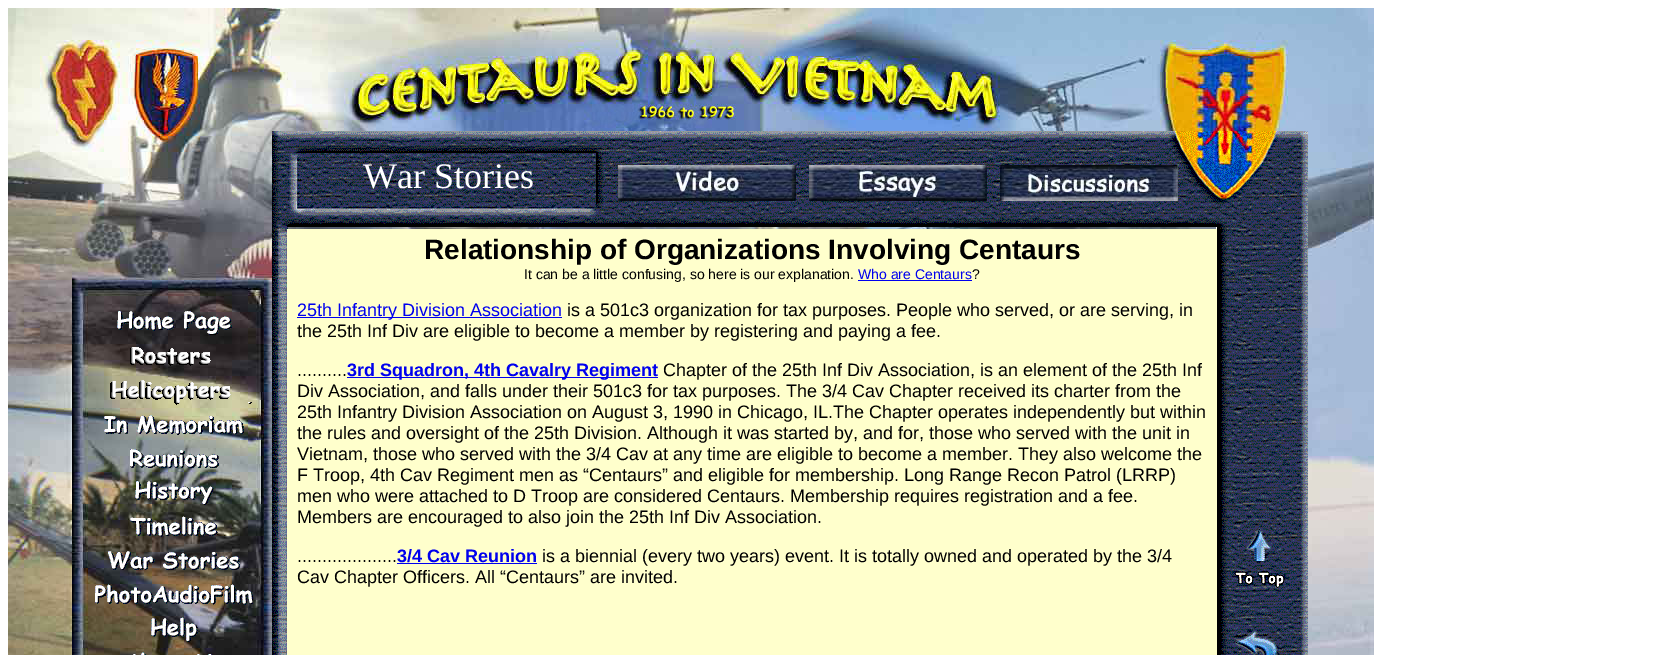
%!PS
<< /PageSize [1664 655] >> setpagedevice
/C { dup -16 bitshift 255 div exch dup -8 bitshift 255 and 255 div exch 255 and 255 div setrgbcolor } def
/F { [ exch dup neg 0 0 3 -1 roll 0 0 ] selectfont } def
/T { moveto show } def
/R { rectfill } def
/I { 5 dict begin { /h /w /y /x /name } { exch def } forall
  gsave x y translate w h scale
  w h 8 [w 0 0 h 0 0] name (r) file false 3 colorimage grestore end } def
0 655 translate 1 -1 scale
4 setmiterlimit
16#FFFFFF C
0 0 1664 655 R
(1.rgb) 8 8 1366 647 I
(2.rgb) 117 311 115 24 I
(3.rgb) 130 347 81 19 I
(4.rgb) 110 380 142 25 I
(5.rgb) 104 415 140 20 I
(6.rgb) 130 449 89 19 I
(7.rgb) 135 481 79 24 I
(8.rgb) 130 516 88 21 I
(9.rgb) 108 551 132 19 I
(10.rgb) 95 584 158 21 I
(11.rgb) 151 617 47 25 I
(12.rgb) 133 652 79 3 I
(13.rgb) 272 131 1036 524 I
/LiberationSerif-Regular 36 F
(War Stories) 363 188 T
(14.rgb) 618 165 178 36 I
(15.rgb) 809 165 178 36 I
(16.rgb) 1000 165 178 36 I
16#FFFFCC C
287 229 930 426 R
/LiberationSans-Bold 28 F
16#000000 C
(Relationship of Organizations Involving Centaurs) 424 259 T
/LiberationSans-Regular 14 F
(It can be a little confusing, so here is our explanation.) 524 279 T
16#0000EE C
(Who are Centaurs) 858 279 T
858 280 114 1 R
16#000000 C
(?) 972 279 T
16#0000EE C
297 317 265 1 R
/LiberationSans-Regular 18 F
(25th Infantry Division Association) 297 316 T
16#000000 C
(is a 501c3 organization for tax purposes. People who served, or are serving, in) 567 316 T
(the 25th Inf Div are eligible to become a member by registering and paying a fee.) 297 337 T
(..........) 297 376 T
16#0000EE C
347 377 311 1 R
/LiberationSans-Bold 18 F
(3rd Squadron, 4th Cavalry Regiment) 347 376 T
/LiberationSans-Regular 18 F
16#000000 C
(Chapter of the 25th Inf Div Association, is an element of the 25th Inf) 663 376 T
(Div Association, and falls under their 501c3 for tax purposes. The 3/4 Cav Chapter received its charter from the) 297 397 T
(25th Infantry Division Association on August 3, 1990 in Chicago, IL.The Chapter operates independently but within) 297 418 T
(the rules and oversight of the 25th Division. Although it was started by, and for, those who served with the unit in) 297 439 T
(Vietnam, those who served with the 3/4 Cav at any time are eligible to become a member. They also welcome the) 297 460 T
(F Troop, 4th Cav Regiment men as “Centaurs” and eligible for membership. Long Range Recon Patrol \(LRRP\)) 297 481 T
(men who were attached to D Troop are considered Centaurs. Membership requires registration and a fee.) 297 502 T
(Members are encouraged to also join the 25th Inf Div Association.) 297 523 T
(....................) 297 562 T
/LiberationSans-Bold 18 F
16#0000EE C
(3/4 Cav Reunion) 397 562 T
397 563 140 1 R
/LiberationSans-Regular 18 F
16#000000 C
(is a biennial \(every two years\) event. It is totally owned and operated by the 3/4) 542 562 T
(Cav Chapter Officers. All “Centaurs” are invited.) 297 583 T
showpage
